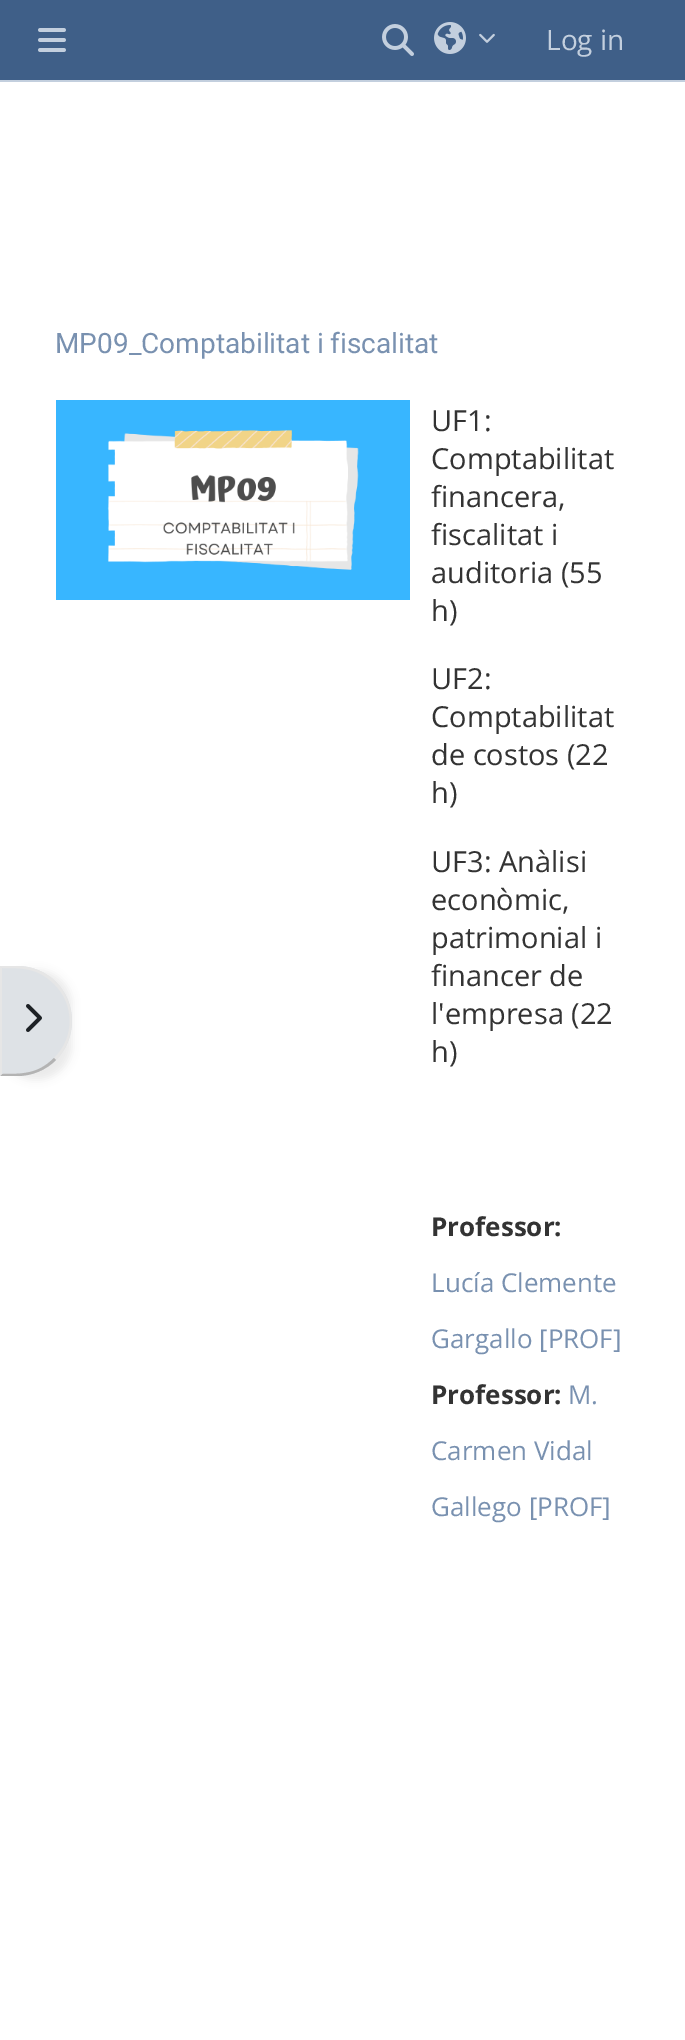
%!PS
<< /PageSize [685 2040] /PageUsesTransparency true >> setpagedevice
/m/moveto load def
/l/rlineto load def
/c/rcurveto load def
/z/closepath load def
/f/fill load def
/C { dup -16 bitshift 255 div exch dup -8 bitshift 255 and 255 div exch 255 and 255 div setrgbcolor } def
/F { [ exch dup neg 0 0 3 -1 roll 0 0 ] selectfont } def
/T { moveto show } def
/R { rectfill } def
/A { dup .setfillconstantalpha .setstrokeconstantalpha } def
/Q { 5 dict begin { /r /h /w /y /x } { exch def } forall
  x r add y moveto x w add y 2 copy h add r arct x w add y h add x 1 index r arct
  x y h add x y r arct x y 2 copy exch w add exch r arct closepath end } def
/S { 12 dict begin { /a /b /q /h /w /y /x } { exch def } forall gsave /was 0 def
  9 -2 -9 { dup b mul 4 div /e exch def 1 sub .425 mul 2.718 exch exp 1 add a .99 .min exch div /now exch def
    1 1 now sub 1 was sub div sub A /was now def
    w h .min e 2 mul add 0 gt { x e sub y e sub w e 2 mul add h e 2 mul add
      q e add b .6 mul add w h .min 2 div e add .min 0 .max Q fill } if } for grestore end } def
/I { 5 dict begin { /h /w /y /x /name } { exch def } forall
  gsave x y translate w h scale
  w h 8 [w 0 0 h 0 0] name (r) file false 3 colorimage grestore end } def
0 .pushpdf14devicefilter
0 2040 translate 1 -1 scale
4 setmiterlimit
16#FFFFFF C
0 0 685 2040 R
16#3F5F88 C
0 0 685 80 R
16#C3CFDE C
0 80 685 2 R
(1.rgb) 38 28 28 24 I
(2.rgb) 382 24 32 32 I
(3.rgb) 434 22 32 32 I
(4.rgb) 479 33 16 10 I
/OpenSans-Regular 28 F
(Log in) 546 50 T
16#000000 C
0 970 72 110 55 4 .07 S
16#DEE2E6 C
0 966 m 17 0 l 30.5 0 55 24.5 55 55 c 0 30.5 -24.5 55 -55 55 c -17 0 l z f
16#E6E6E6 C
0 966 m 2 2 l 21 0 36 0 52 16 c 2 -2 l -10 -10 -24 -16 -39 -16 c z f
56 982 m 21 22 21 56 0 78 c -2 -2 l 21 -20 21 -54 0 -74 c z f
16#B3B3B3 C
17 1076 m 15 0 29 -6 39 -16 c -2 -2 l -16 16 -31 16 -52 16 c -2 2 l z f
16#E6E6E6 C
2 968 m -2 -2 l 0 110 l 2 -2 l z f
(5.rgb) 26 1004 16 28 I
/Roboto-Regular 28 F
16#7991B0 C
(MP09_Comptabilitat i fiscalitat) 55 353 T
(6.rgb) 56 400 354 200 I
/OpenSans-Regular 29 F
16#333333 C
(UF1:) 431 431 T
(Comptabilitat) 431 469 T
(financera,) 431 507 T
(fiscalitat i) 431 545 T
(auditoria \(55) 431 583 T
(h\)) 431 621 T
(UF2:) 431 689 T
(Comptabilitat) 431 727 T
(de costos \(22) 431 765 T
(h\)) 431 803 T
(UF3: Anàlisi) 431 872 T
(econòmic,) 431 910 T
(patrimonial i) 431 948 T
(financer de) 431 986 T
(l'empresa \(22) 431 1024 T
(h\)) 431 1062 T
/OpenSans-Bold 26 F
(Professor:) 431 1236 T
/OpenSans-Regular 26 F
16#7991B0 C
(Lucía Clemente) 431 1292 T
(Gargallo [PROF]) 431 1348 T
/OpenSans-Bold 26 F
16#333333 C
(Professor:) 431 1404 T
/OpenSans-Regular 26 F
16#7991B0 C
(M.) 568 1404 T
(Carmen Vidal) 431 1460 T
(Gallego [PROF]) 431 1516 T
.poppdf14devicefilter showpage
